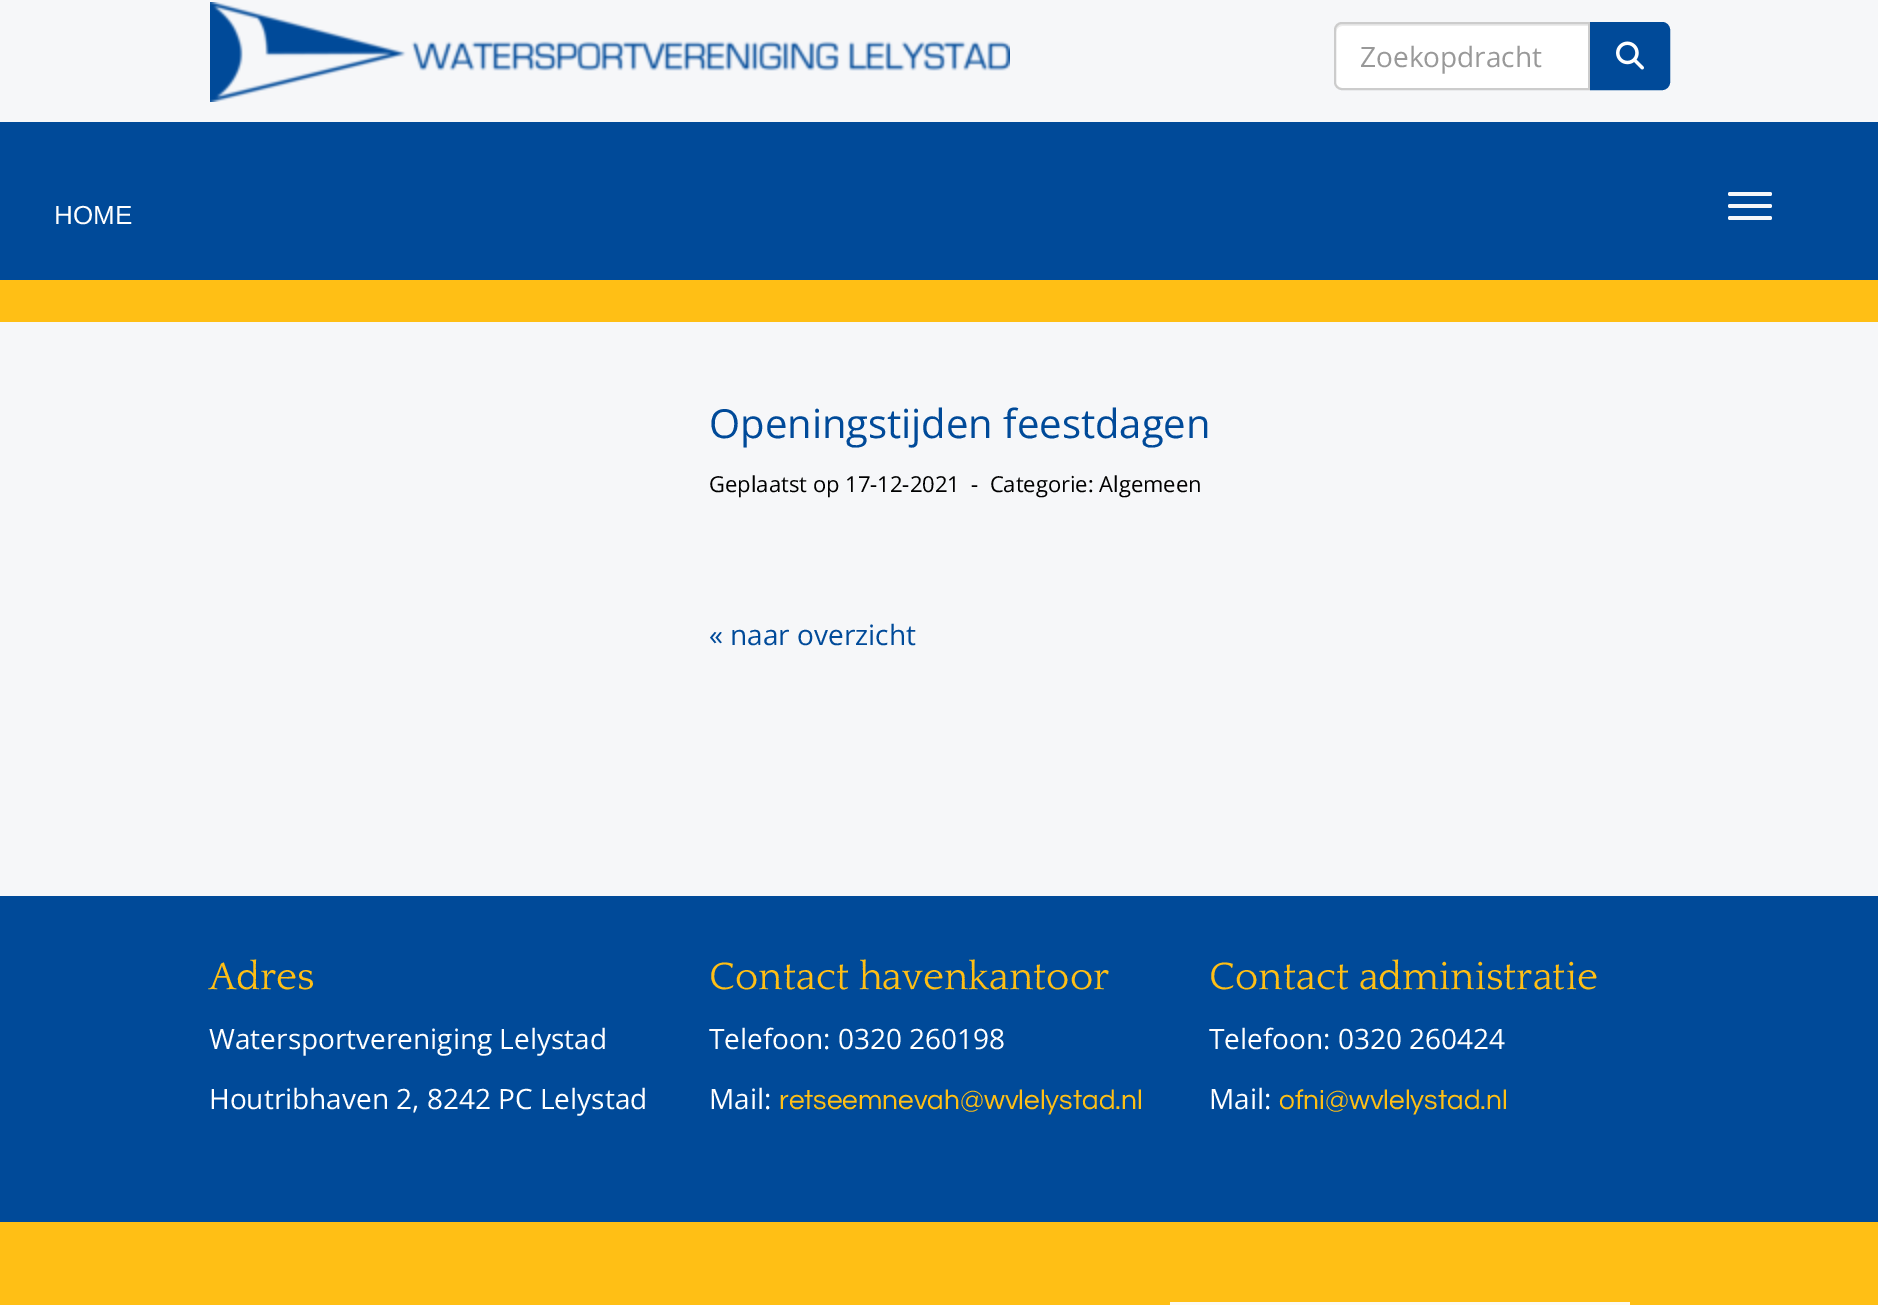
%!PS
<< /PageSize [1878 1305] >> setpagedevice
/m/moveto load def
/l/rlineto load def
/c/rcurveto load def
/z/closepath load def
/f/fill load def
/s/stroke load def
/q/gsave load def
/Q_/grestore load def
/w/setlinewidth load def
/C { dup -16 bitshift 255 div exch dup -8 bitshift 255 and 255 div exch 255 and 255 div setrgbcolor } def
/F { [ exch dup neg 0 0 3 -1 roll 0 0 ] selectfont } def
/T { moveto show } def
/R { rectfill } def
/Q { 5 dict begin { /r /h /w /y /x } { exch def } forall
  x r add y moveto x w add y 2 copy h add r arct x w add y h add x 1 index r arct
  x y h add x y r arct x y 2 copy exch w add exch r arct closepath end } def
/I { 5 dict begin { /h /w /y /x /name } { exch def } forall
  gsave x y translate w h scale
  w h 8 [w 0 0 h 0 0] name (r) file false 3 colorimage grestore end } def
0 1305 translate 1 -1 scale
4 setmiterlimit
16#F6F7F9 C
0 0 1878 1305 R
(1.rgb) 210 2 800 100 I
16#FFFFFF C
1342 22 m 248 0 l 0 68 l -248 0 l -4.5 0 -8 -3.5 -8 -8 c 0 -52 l 0 -4.5 3.5 -8 8 -8 c z f
16#ECECEC C
1342 26 m 246 0 l 0 -2 l -246 0 l -5 0 -6 4 -6 8 c 0 -3 3 -6 6 -6 c z f
16#CCCCCC C
2 w
1342 23 m 247 0 l 0 66 l -247 0 l -4 0 -7 -3 -7 -7 c 0 -52 l 0 -4 3 -7 7 -7 c z s
/OpenSans-Regular 28 F
16#999999 C
(Zoekopdracht) 1360 67 T
16#004A99 C
1591 23 m 71 0 l 4 0 7 3 7 7 c 0 52 l 0 4 -3 7 -7 7 c -71 0 l z q f Q_
s
(2.rgb) 1616 41 28 29 I
0 122 1878 158 R
/LiberationSans-Regular 26 F
16#FFFFFF C
(HOME) 54 224 T
16#F6F7F9 C
1728 192 44 4 2 Q f
1728 204 44 4 2 Q f
1728 216 44 4 2 Q f
16#FFBF15 C
0 280 1878 42 R
/OpenSans-Regular 40 F
16#004A99 C
(Openingstijden feestdagen) 709 438 T
/OpenSans-Regular 22 F
16#000000 C
(Geplaatst op 17-12-2021) 709 492 T
(-  Categorie: Algemeen) 971 492 T
/OpenSans-Regular 28 F
16#004A99 C
(« naar overzicht) 709 645 T
0 896 1878 326 R
/Quattrocento-Regular 40 F
16#FFBF15 C
(Adres) 209 989 T
/OpenSans-Regular 28 F
16#FFFFFF C
(Watersportvereniging Lelystad) 209 1049 T
(Houtribhaven 2, 8242 PC Lelystad) 209 1109 T
/Quattrocento-Regular 40 F
16#FFBF15 C
(Contact havenkantoor) 709 989 T
/OpenSans-Regular 28 F
16#FFFFFF C
(Telefoon: 0320 260198) 709 1049 T
(Mail:) 709 1109 T
/Questrial-Regular 28 F
16#FFBF15 C
(retseemnevah@wvlelystad.nl) 779 1109 T
/Quattrocento-Regular 40 F
(Contact administratie) 1209 989 T
/OpenSans-Regular 28 F
16#FFFFFF C
(Telefoon: 0320 260424) 1209 1049 T
(Mail:) 1209 1109 T
/Questrial-Regular 28 F
16#FFBF15 C
(ofni@wvlelystad.nl) 1279 1109 T
0 1222 1878 83 R
16#FBFAF6 C
1170 1302 460 3 R
showpage
